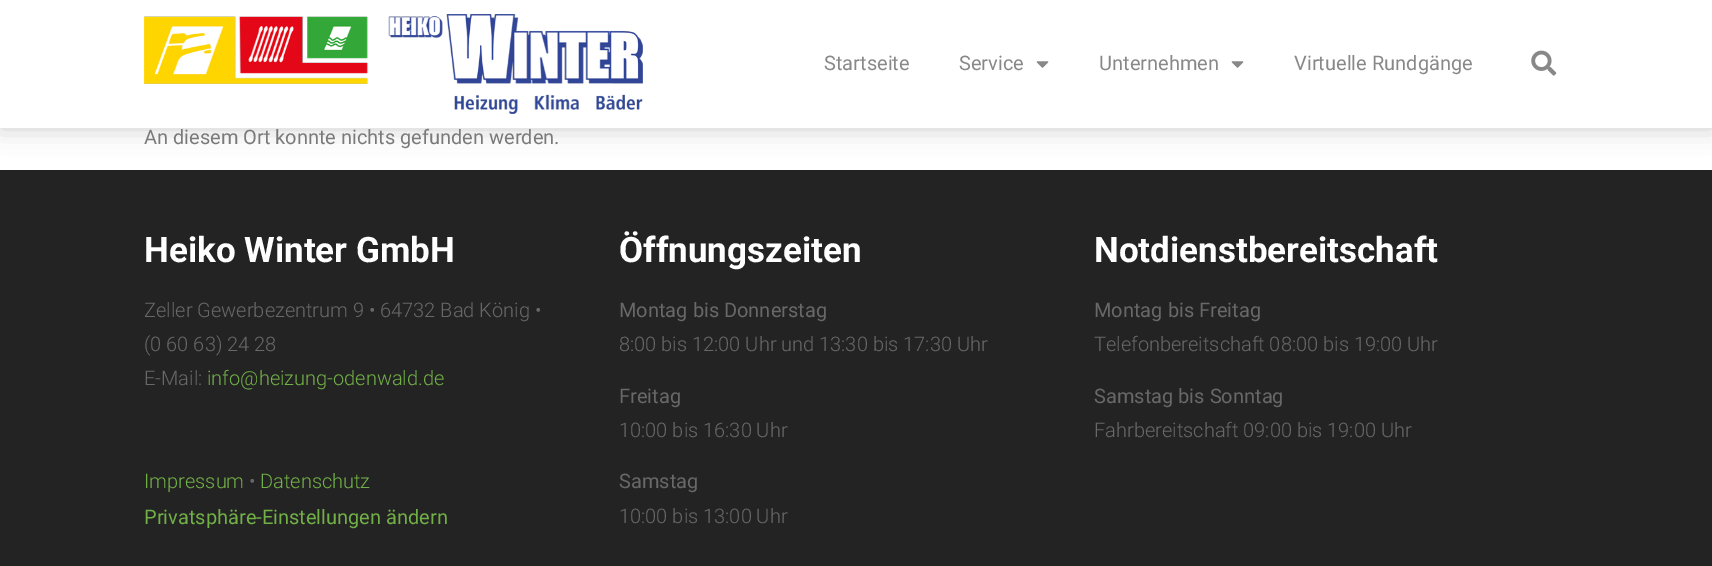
%!PS
<< /PageSize [1712 566] /PageUsesTransparency true >> setpagedevice
/C { dup -16 bitshift 255 div exch dup -8 bitshift 255 and 255 div exch 255 and 255 div setrgbcolor } def
/F { [ exch dup neg 0 0 3 -1 roll 0 0 ] selectfont } def
/T { moveto show } def
/R { rectfill } def
/A { dup .setfillconstantalpha .setstrokeconstantalpha } def
/Q { 5 dict begin { /r /h /w /y /x } { exch def } forall
  x r add y moveto x w add y 2 copy h add r arct x w add y h add x 1 index r arct
  x y h add x y r arct x y 2 copy exch w add exch r arct closepath end } def
/S { 12 dict begin { /a /b /q /h /w /y /x } { exch def } forall gsave /was 0 def
  9 -2 -9 { dup b mul 4 div /e exch def 1 sub .425 mul 2.718 exch exp 1 add a .99 .min exch div /now exch def
    1 1 now sub 1 was sub div sub A /was now def
    w h .min e 2 mul add 0 gt { x e sub y e sub w e 2 mul add h e 2 mul add
      q e add b .6 mul add w h .min 2 div e add .min 0 .max Q fill } if } for grestore end } def
/I { 5 dict begin { /h /w /y /x /name } { exch def } forall
  gsave x y translate w h scale
  w h 8 [w 0 0 h 0 0] name (r) file false 3 colorimage grestore end } def
0 .pushpdf14devicefilter
0 566 translate 1 -1 scale
4 setmiterlimit
16#FFFFFF C
0 0 1712 566 R
16#000000 C
0 0 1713 128 0 12.5 .2 S
16#FFFFFF C
0 0 1712 128 R
(1.rgb) 144 14 499 100 I
/Roboto-Regular 20 F
16#888888 C
(Startseite) 824 70 T
(Service) 959 70 T
(2.rgb) 1036 61 13 7 I
(Unternehmen) 1099 70 T
(2.rgb) 1231 61 13 7 I
(Virtuelle Rundgänge) 1294 70 T
(3.rgb) 1531 50 26 26 I
16#7A7A7A C
(An diesem Ort konnte nichts gefunden werden.) 144 144 T
16#232323 C
0 170 1712 396 R
/Roboto-Bold 35 F
16#FFFFFF C
(Heiko Winter GmbH) 144 262 T
/Roboto-Light 20 F
16#686868 C
(Zeller Gewerbezentrum 9 • 64732 Bad König •) 144 317 T
(\(0 60 63\) 24 28) 144 351 T
(E-Mail:) 144 385 T
16#71B046 C
(info@heizung-odenwald.de) 207 385 T
(Impressum) 144 488 T
16#686868 C
(•) 249 488 T
16#71B046 C
(Datenschutz) 260 488 T
/Roboto-Regular 20 F
(Privatsphäre-Einstellungen ändern) 144 524 T
/Roboto-Bold 35 F
16#FFFFFF C
(Öffnungszeiten) 619 262 T
/Roboto-Regular 20 F
16#686868 C
(Montag bis Donnerstag) 619 317 T
/Roboto-Light 20 F
(8:00 bis 12:00 Uhr und 13:30 bis 17:30 Uhr) 619 351 T
/Roboto-Regular 20 F
(Freitag) 619 403 T
/Roboto-Light 20 F
(10:00 bis 16:30 Uhr) 619 437 T
/Roboto-Regular 20 F
(Samstag) 619 488 T
/Roboto-Light 20 F
(10:00 bis 13:00 Uhr) 619 523 T
/Roboto-Bold 35 F
16#FFFFFF C
(Notdienstbereitschaft) 1094 262 T
/Roboto-Regular 20 F
16#686868 C
(Montag bis Freitag) 1094 317 T
/Roboto-Light 20 F
(Telefonbereitschaft 08:00 bis 19:00 Uhr) 1094 351 T
/Roboto-Regular 20 F
(Samstag bis Sonntag) 1094 403 T
/Roboto-Light 20 F
(Fahrbereitschaft 09:00 bis 19:00 Uhr) 1094 437 T
.poppdf14devicefilter showpage
